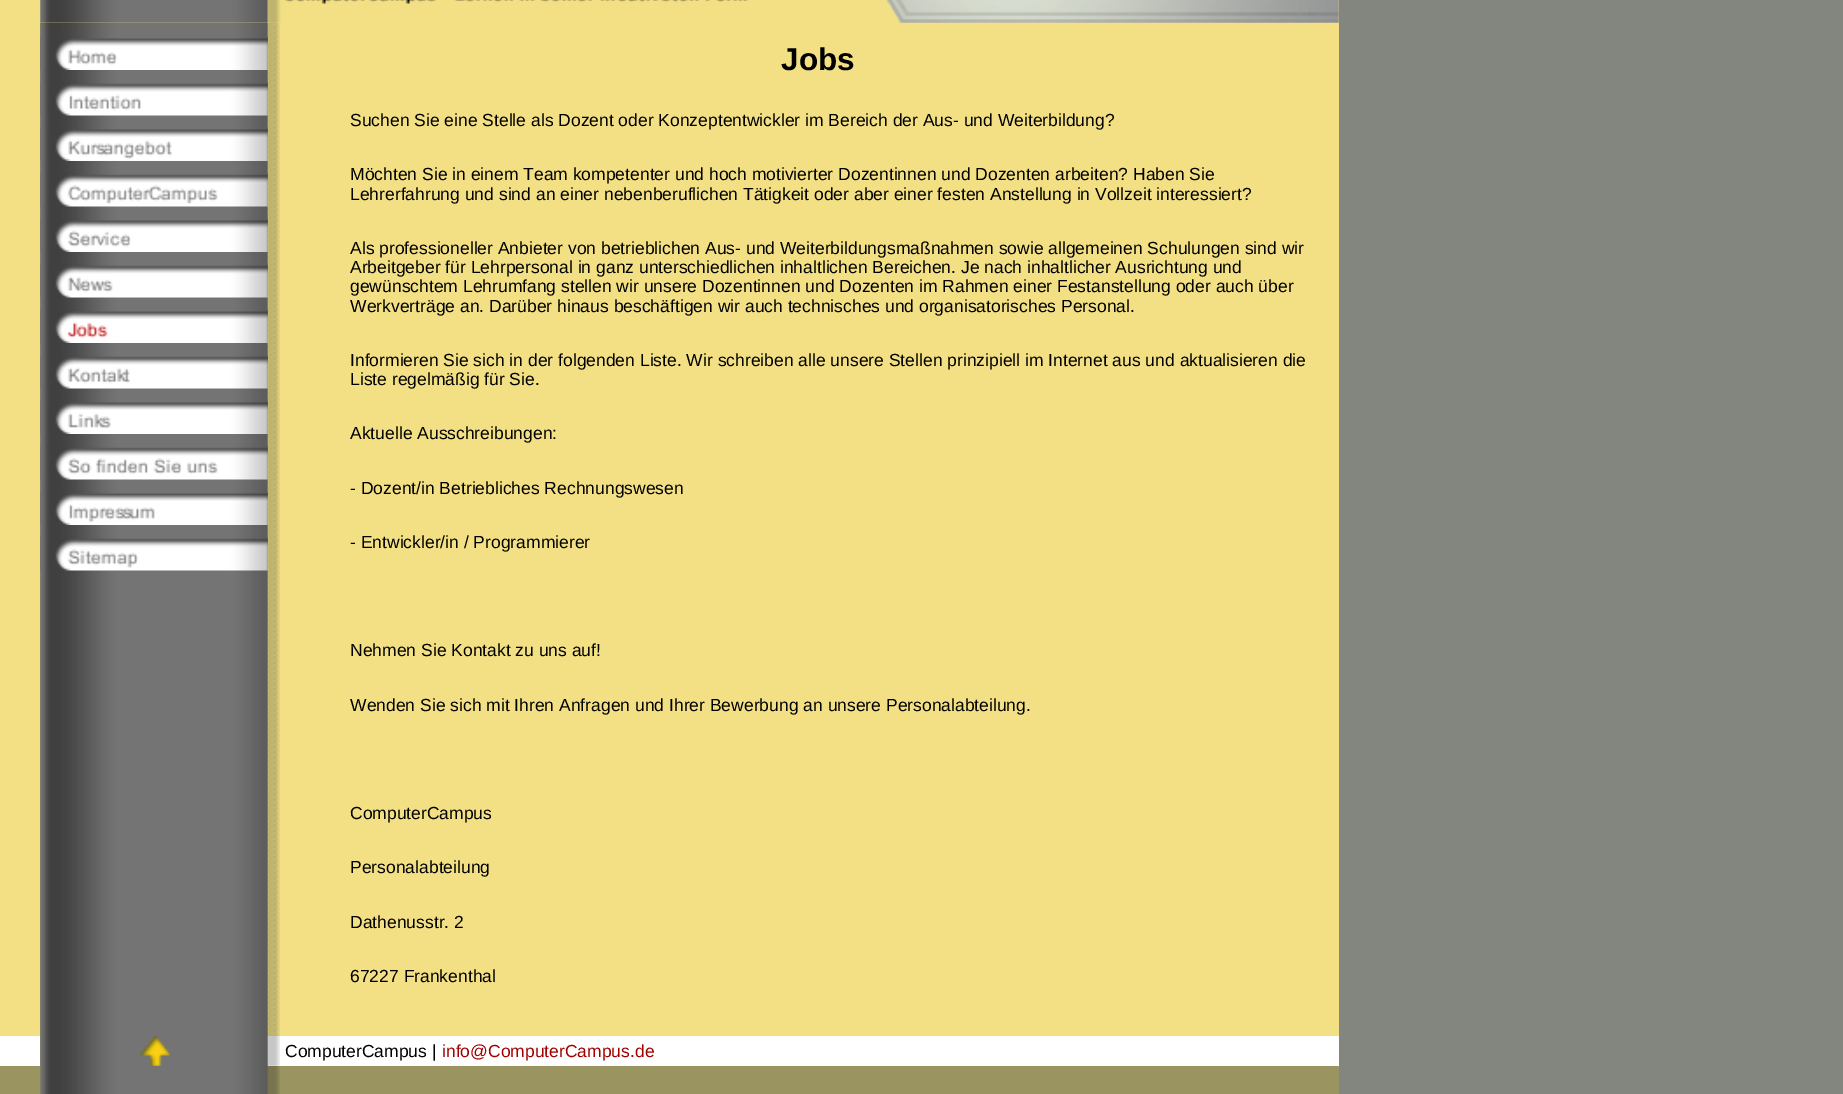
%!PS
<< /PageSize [1843 1094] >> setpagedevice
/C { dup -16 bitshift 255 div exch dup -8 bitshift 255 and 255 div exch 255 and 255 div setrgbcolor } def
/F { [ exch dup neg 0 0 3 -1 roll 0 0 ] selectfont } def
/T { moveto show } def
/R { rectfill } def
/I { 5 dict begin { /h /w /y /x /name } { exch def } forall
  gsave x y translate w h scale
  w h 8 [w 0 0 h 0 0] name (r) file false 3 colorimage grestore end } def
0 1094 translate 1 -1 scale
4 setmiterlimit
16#9A9461 C
0 0 1843 1094 R
(1.rgb) 40 23 240 1071 I
16#F3E084 C
0 0 1339 23 R
(5.rgb) 267 22 13 1014 I
(2.rgb) 40 0 228 23 I
268 22 12 1 R
(3.rgb) 267 0 481 23 I
(4.rgb) 884 0 455 23 I
16#83867F C
1339 0 504 1094 R
16#F3E084 C
0 23 40 1013 R
280 23 1059 17 R
(6.rgb) 40 36 228 34 I
(7.rgb) 40 82 228 34 I
(8.rgb) 40 127 228 34 I
(9.rgb) 40 173 228 34 I
(10.rgb) 40 218 228 34 I
(11.rgb) 40 264 228 34 I
(12.rgb) 40 309 228 34 I
(13.rgb) 40 355 228 34 I
(14.rgb) 40 400 228 34 I
(15.rgb) 40 446 228 34 I
(16.rgb) 40 491 228 34 I
(17.rgb) 40 537 228 34 I
280 40 1059 996 R
/LiberationSans-Bold 31.5 F
16#000000 C
(Jobs) 781 70 T
/LiberationSans-Regular 17.5 F
(Suchen Sie eine Stelle als Dozent oder Konzeptentwickler im Bereich der Aus- und Weiterbildung?) 350 126 T
(Möchten Sie in einem Team kompetenter und hoch motivierter Dozentinnen und Dozenten arbeiten? Haben Sie) 350 180 T
(Lehrerfahrung und sind an einer nebenberuflichen Tätigkeit oder aber einer festen Anstellung in Vollzeit interessiert?) 350 200 T
(Als professioneller Anbieter von betrieblichen Aus- und Weiterbildungsmaßnahmen sowie allgemeinen Schulungen sind wir) 350 254 T
(Arbeitgeber für Lehrpersonal in ganz unterschiedlichen inhaltlichen Bereichen. Je nach inhaltlicher Ausrichtung und) 350 273 T
(gewünschtem Lehrumfang stellen wir unsere Dozentinnen und Dozenten im Rahmen einer Festanstellung oder auch über) 350 292 T
(Werkverträge an. Darüber hinaus beschäftigen wir auch technisches und organisatorisches Personal.) 350 312 T
(Informieren Sie sich in der folgenden Liste. Wir schreiben alle unsere Stellen prinzipiell im Internet aus und aktualisieren die) 350 366 T
(Liste regelmäßig für Sie.) 350 385 T
(Aktuelle Ausschreibungen:) 350 439 T
(- Dozent/in Betriebliches Rechnungswesen) 350 494 T
(- Entwickler/in / Programmierer) 350 548 T
(Nehmen Sie Kontakt zu uns auf!) 350 656 T
(Wenden Sie sich mit Ihren Anfragen und Ihrer Bewerbung an unsere Personalabteilung.) 350 711 T
(ComputerCampus) 350 819 T
(Personalabteilung) 350 873 T
(Dathenusstr. 2) 350 928 T
(67227 Frankenthal) 350 982 T
16#FFFFFF C
0 1036 40 30 R
(18.rgb) 140 1036 30 30 I
268 1036 1071 30 R
(19.rgb) 267 1036 13 30 I
16#000000 C
(ComputerCampus |) 285 1057 T
16#A20000 C
(info@ComputerCampus.de) 442 1057 T
showpage
